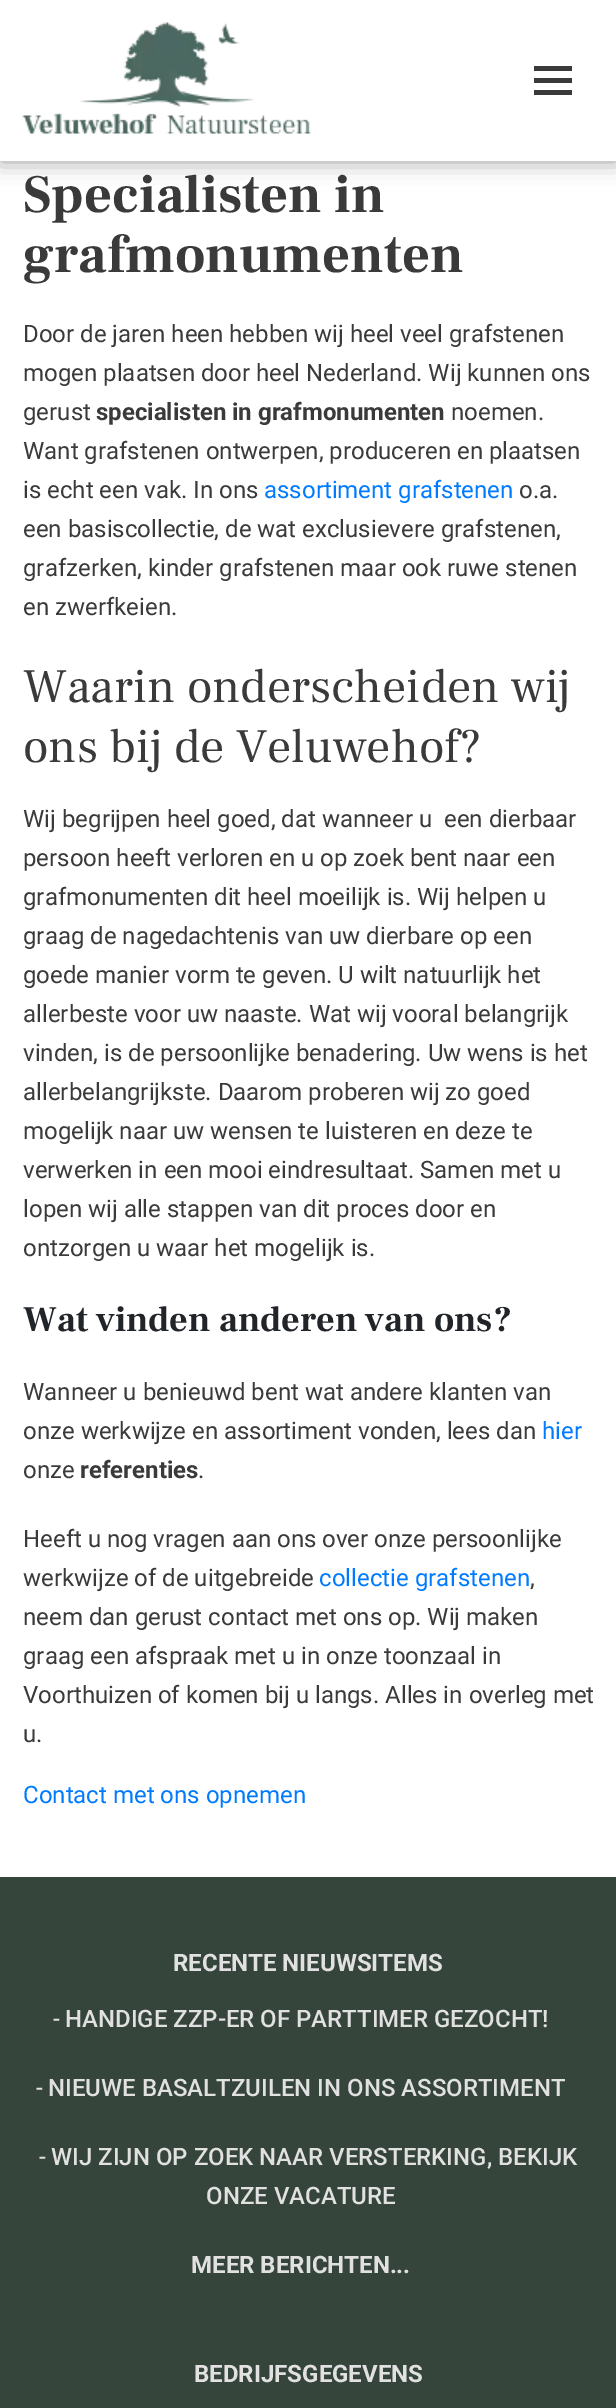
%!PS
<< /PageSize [616 2408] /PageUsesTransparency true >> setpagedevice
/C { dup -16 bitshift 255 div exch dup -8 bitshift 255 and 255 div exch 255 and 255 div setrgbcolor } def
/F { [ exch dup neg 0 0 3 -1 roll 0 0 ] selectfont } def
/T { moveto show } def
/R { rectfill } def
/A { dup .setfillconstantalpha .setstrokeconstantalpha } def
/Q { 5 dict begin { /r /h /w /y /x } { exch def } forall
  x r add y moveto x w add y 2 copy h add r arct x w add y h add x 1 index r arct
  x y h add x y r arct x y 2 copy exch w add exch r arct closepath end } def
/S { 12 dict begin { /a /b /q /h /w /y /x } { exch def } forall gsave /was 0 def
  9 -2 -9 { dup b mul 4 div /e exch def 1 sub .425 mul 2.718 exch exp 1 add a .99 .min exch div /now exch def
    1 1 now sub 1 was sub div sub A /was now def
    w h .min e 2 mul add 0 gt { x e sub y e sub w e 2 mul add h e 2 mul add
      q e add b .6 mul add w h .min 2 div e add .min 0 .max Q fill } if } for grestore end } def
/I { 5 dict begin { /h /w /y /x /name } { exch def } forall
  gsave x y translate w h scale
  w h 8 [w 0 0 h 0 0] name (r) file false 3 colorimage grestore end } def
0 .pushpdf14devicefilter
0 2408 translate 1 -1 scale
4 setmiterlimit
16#FFFFFF C
0 0 616 2408 R
16#000000 C
0 0 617 161 0 11 .4 S
16#FFFFFF C
0 0 616 161 R
(1.rgb) 22 22 289 112 I
16#3A3A3A C
534 66 38 5 R
534 78 38 5 R
534 90 38 5 R
/FrankRuhlLibre-Bold 54 F
(Specialisten in) 23 212 T
(grafmonumenten) 23 272 T
/Roboto-Regular 24 F
(Door de jaren heen hebben wij heel veel grafstenen) 23 342 T
(mogen plaatsen door heel Nederland. Wij kunnen ons) 23 381 T
(gerust) 23 420 T
/Roboto-Bold 24 F
(specialisten in grafmonumenten) 96 420 T
/Roboto-Regular 24 F
(noemen.) 451 420 T
(Want grafstenen ontwerpen, produceren en plaatsen) 23 459 T
(is echt een vak. In ons) 23 498 T
16#007BFF C
(assortiment grafstenen) 264 498 T
16#3A3A3A C
(o.a.) 519 498 T
(een basiscollectie, de wat exclusievere grafstenen,) 23 537 T
(grafzerken, kinder grafstenen maar ook ruwe stenen) 23 576 T
(en zwerfkeien.) 23 615 T
/FrankRuhlLibre-Regular 48 F
(Waarin onderscheiden wij) 23 702 T
(ons bij de Veluwehof?) 23 762 T
/Roboto-Regular 24 F
(Wij begrijpen heel goed, dat wanneer u  een dierbaar) 23 827 T
(persoon heeft verloren en u op zoek bent naar een) 23 866 T
(grafmonumenten dit heel moeilijk is. Wij helpen u) 23 905 T
(graag de nagedachtenis van uw dierbare op een) 23 944 T
(goede manier vorm te geven. U wilt natuurlijk het) 23 983 T
(allerbeste voor uw naaste. Wat wij vooral belangrijk) 23 1022 T
(vinden, is de persoonlijke benadering. Uw wens is het) 23 1061 T
(allerbelangrijkste. Daarom proberen wij zo goed) 23 1100 T
(mogelijk naar uw wensen te luisteren en deze te) 23 1139 T
(verwerken in een mooi eindresultaat. Samen met u) 23 1178 T
(lopen wij alle stappen van dit proces door en) 23 1217 T
(ontzorgen u waar het mogelijk is.) 23 1256 T
/FrankRuhlLibre-Bold 36 F
16#212529 C
(Wat vinden anderen van ons?) 23 1331 T
/Roboto-Regular 24 F
16#3A3A3A C
(Wanneer u benieuwd bent wat andere klanten van) 23 1400 T
(onze werkwijze en assortiment vonden, lees dan) 23 1439 T
16#007BFF C
(hier) 542 1439 T
16#3A3A3A C
(onze) 23 1478 T
/Roboto-Bold 24 F
(referenties) 80 1478 T
/Roboto-Regular 24 F
(.) 198 1478 T
(Heeft u nog vragen aan ons over onze persoonlijke) 23 1547 T
(werkwijze of de uitgebreide) 23 1586 T
16#007BFF C
(collectie grafstenen) 319 1586 T
16#3A3A3A C
(,) 530 1586 T
(neem dan gerust contact met ons op. Wij maken) 23 1625 T
(graag een afspraak met u in onze toonzaal in) 23 1664 T
(Voorthuizen of komen bij u langs. Alles in overleg met) 23 1703 T
(u.) 23 1742 T
16#007BFF C
(Contact met ons opnemen) 23 1803 T
16#36453C C
0 1877 616 531 R
/Roboto-Bold 24 F
16#E1E1E1 C
(RECENTE NIEUWSITEMS) 173 1971 T
/Roboto-Regular 24 F
(-) 53 2027 T
/Roboto-Medium 24 F
(HANDIGE ZZP-ER OF PARTTIMER GEZOCHT!) 65 2027 T
/Roboto-Regular 24 F
(-) 36 2096 T
/Roboto-Medium 24 F
(NIEUWE BASALTZUILEN IN ONS ASSORTIMENT) 48 2096 T
/Roboto-Regular 24 F
(-) 39 2165 T
/Roboto-Medium 24 F
(WIJ ZIJN OP ZOEK NAAR VERSTERKING, BEKIJK) 51 2165 T
(ONZE VACATURE) 206 2204 T
/Roboto-Bold 24 F
(MEER BERICHTEN...) 191 2273 T
(BEDRIJFSGEGEVENS) 194 2382 T
.poppdf14devicefilter showpage
